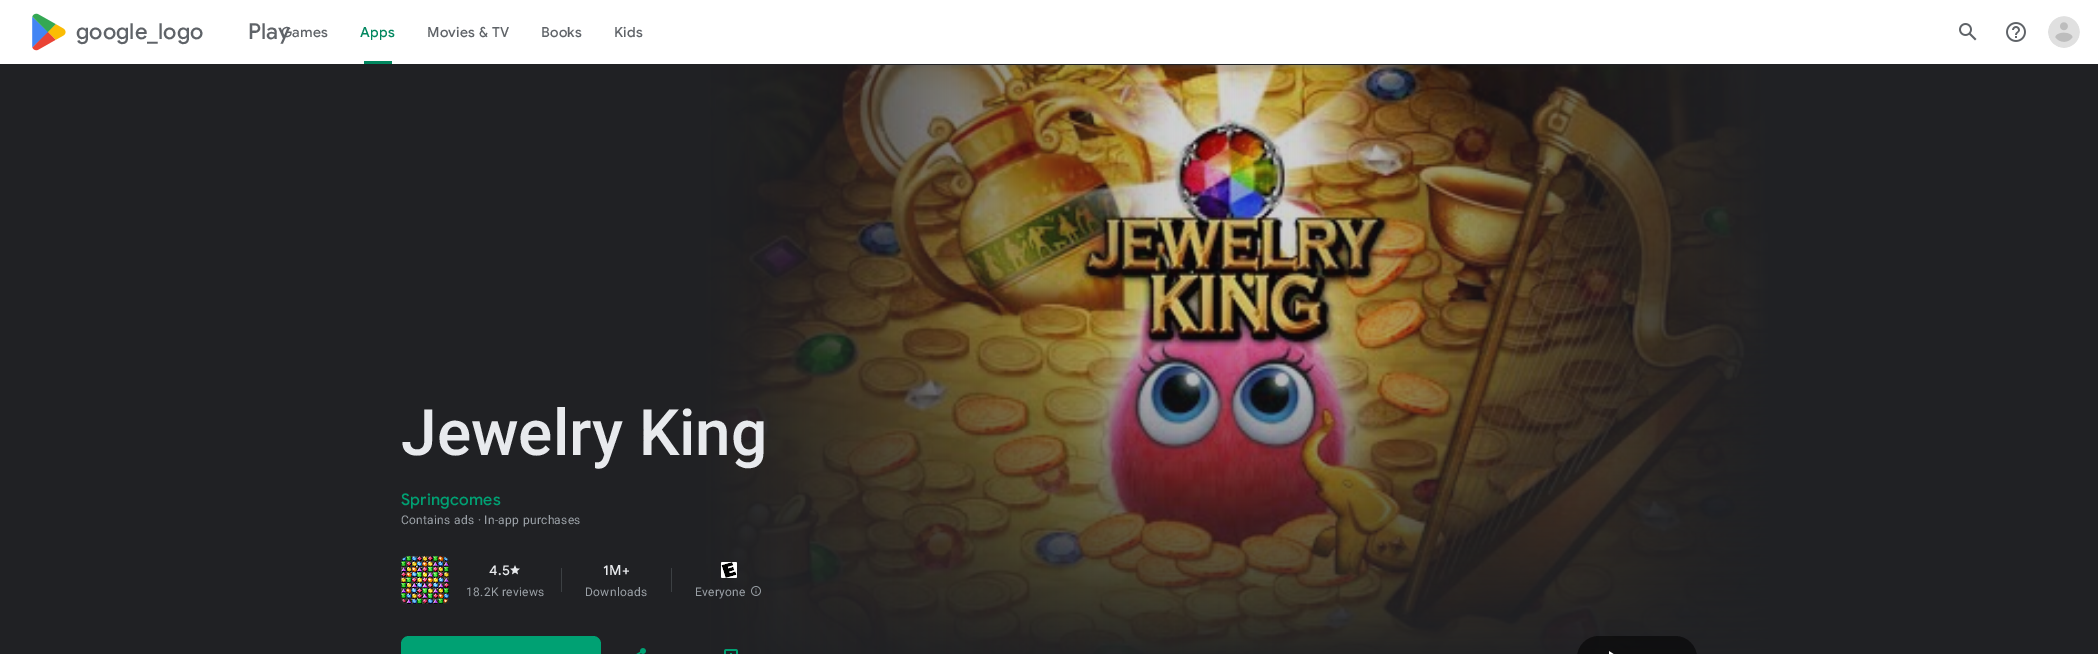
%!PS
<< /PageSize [2098 654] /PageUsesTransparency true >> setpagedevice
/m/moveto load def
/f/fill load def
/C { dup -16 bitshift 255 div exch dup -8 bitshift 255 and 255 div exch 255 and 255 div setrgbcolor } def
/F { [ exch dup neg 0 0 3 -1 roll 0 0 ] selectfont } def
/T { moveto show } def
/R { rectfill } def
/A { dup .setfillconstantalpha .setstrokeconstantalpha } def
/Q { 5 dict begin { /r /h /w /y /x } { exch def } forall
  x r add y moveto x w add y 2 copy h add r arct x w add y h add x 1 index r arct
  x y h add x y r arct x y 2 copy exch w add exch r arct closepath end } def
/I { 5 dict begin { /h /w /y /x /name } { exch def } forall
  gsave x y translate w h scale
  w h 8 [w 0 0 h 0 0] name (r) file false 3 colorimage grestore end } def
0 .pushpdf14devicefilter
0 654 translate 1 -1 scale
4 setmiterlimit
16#FFFFFF C
0 0 2098 654 R
(1.rgb) 32 13 34 38 I
/GoogleSans-Medium 22 F
16#5F6368 C
76 39 m 55 0 32 (google_logo) widthshow
248 39 m 55 0 32 (Play) widthshow
/GoogleSans-Medium 14 F
281 37 m .25 0 (Games) ashow
16#01875F C
360 37 m .25 0 (Apps) ashow
364 61 28 3 R
16#5F6368 C
427 37 m .25 0 (Movies & TV) ashow
541 37 m .25 0 (Books) ashow
614 37 m .25 0 (Kids) ashow
(2.rgb) 1959 23 18 18 I
(3.rgb) 2006 22 20 20 I
(4.rgb) 2048 16 32 32 I
16#202124 C
0 64 2098 590 R
(9.rgb) 703 65 1065 589 I
/Roboto-Medium 64 F
16#E8EAED C
(Jewelry King) 401 455 T
/GoogleSans-Medium 16 F
16#00A173 C
401 505 m .1 0 (Springcomes) ashow
/Roboto-Regular 12 F
16#9AA0A6 C
401 524 m .3 0 (Contains ads · In-app purchases) ashow
(5.rgb) 401 556 48 48 I
/GoogleSans-Medium 14 F
16#E8EAED C
489 575 m .25 0 (4.5) ashow
(6.rgb) 510 565 10 10 I
/Roboto-Regular 12 F
16#9AA0A6 C
466 596 m .3 0 (18.2K reviews) ashow
16#3C4043 C
561 568 1 24 R
/GoogleSans-Medium 14 F
16#E8EAED C
603 575 m .25 0 (1M+) ashow
/Roboto-Regular 12 F
16#9AA0A6 C
585 596 m .3 0 (Downloads) ashow
16#3C4043 C
671 568 1 24 R
(7.rgb) 721 562 16 16 I
16#9AA0A6 C
695 596 m .3 0 (Everyone) ashow
(8.rgb) 751 586 10 10 I
16#00A173 C
401 636 200 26 8 Q f
(10.rgb) 636 648 10 6 I
(11.rgb) 724 649 14 5 I
0.54 A
16#000000 C
1577 636 120 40 22 Q f
1 A
(12.rgb) 1609 651 5 3 I
.poppdf14devicefilter showpage
